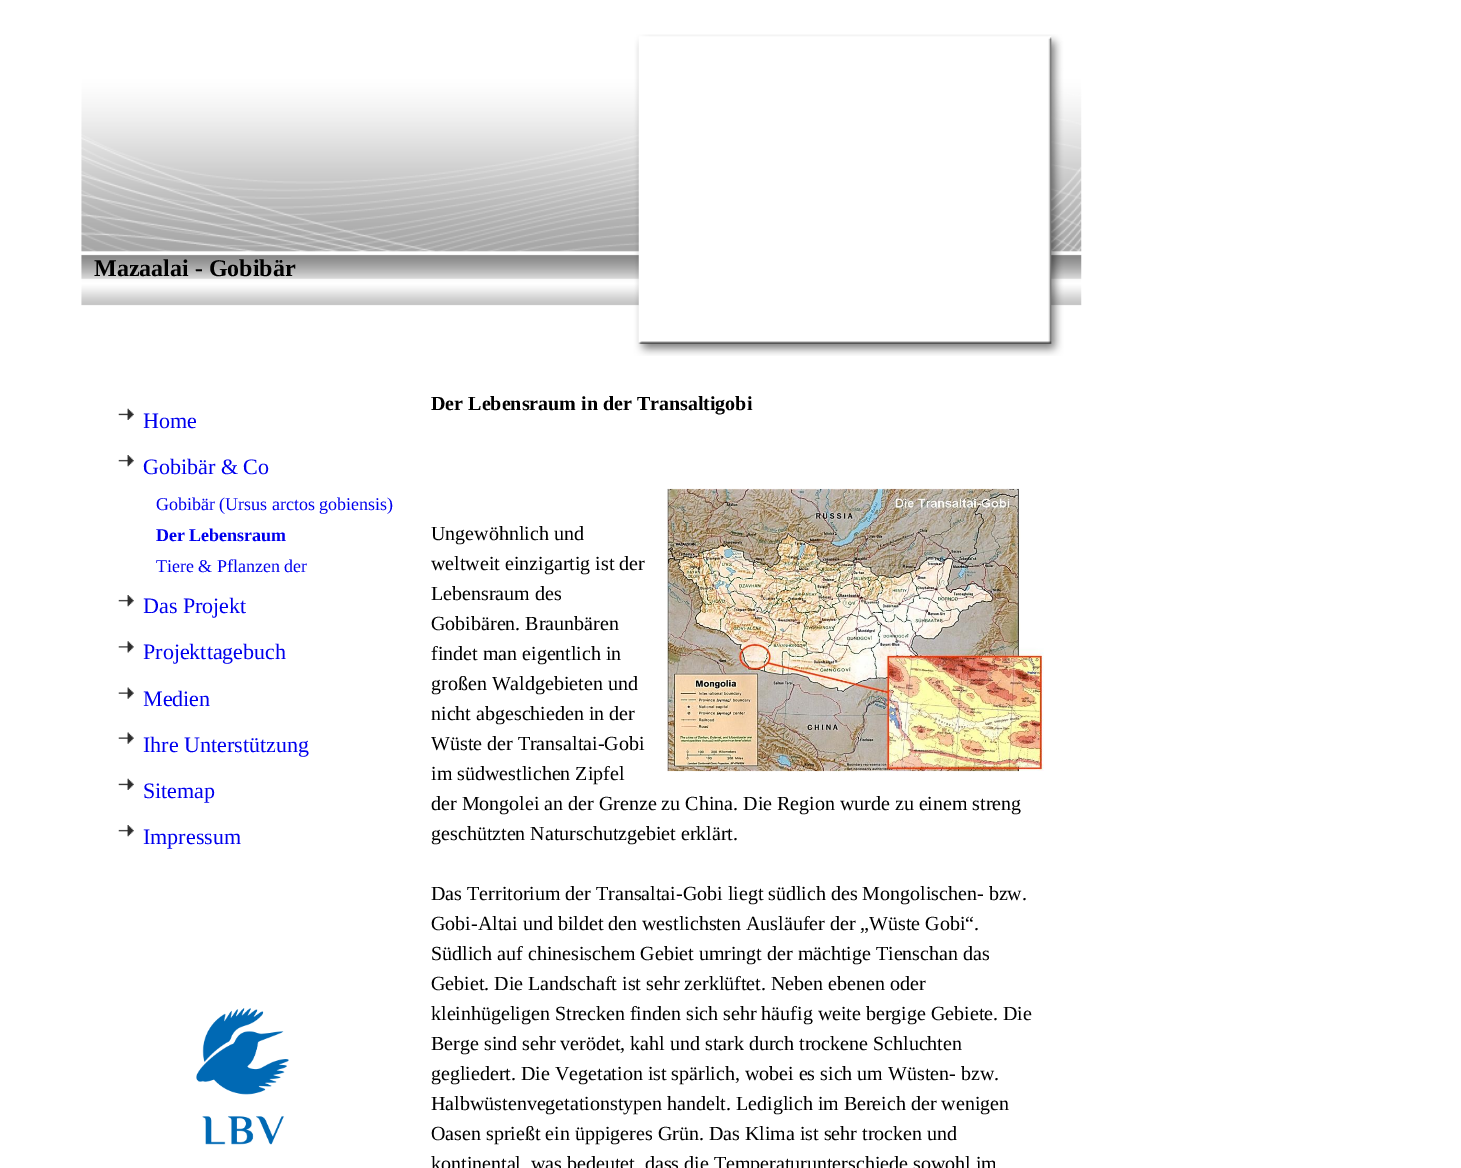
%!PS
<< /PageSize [1461 1168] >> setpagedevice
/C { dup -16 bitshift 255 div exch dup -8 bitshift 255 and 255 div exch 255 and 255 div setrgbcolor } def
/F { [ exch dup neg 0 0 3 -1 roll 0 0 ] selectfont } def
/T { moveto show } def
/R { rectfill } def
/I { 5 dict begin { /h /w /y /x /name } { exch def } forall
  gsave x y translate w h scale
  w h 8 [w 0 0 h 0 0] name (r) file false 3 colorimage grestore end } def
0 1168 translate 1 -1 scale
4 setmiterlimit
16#FFFFFF C
0 0 1461 1168 R
(1.rgb) 81 34 1001 322 I
/LiberationSerif-Bold 24 F
16#000000 C
(Mazaalai - Gobibär) 94 276 T
(2.rgb) 118 408 16 12 I
/LiberationSerif-Regular 22 F
16#0000EE C
(Home) 143 428 T
(3.rgb) 118 455 16 12 I
(Gobibär & Co) 143 474 T
/LiberationSerif-Regular 18 F
(Gobibär \(Ursus arctos gobiensis\)) 156 510 T
/LiberationSerif-Bold 18 F
(Der Lebensraum) 156 541 T
/LiberationSerif-Regular 18 F
(Tiere & Pflanzen der) 156 572 T
(3.rgb) 118 595 16 12 I
/LiberationSerif-Regular 22 F
(Das Projekt) 143 613 T
(4.rgb) 118 641 16 12 I
(Projekttagebuch) 143 659 T
(5.rgb) 118 687 16 12 I
(Medien) 143 706 T
(5.rgb) 118 732 16 12 I
(Ihre Unterstützung) 143 752 T
(6.rgb) 118 778 16 12 I
(Sitemap) 143 798 T
(3.rgb) 118 825 16 12 I
(Impressum) 143 844 T
(7.rgb) 196 1008 93 137 I
/LiberationSerif-Bold 20 F
16#000000 C
(Der Lebensraum in der Transaltigobi) 431 410 T
(8.rgb) 667 488 377 284 I
/LiberationSerif-Regular 20 F
(Ungewöhnlich und) 431 540 T
(weltweit einzigartig ist der) 431 570 T
(Lebensraum des) 431 600 T
(Gobibären. Braunbären) 431 630 T
(findet man eigentlich in) 431 660 T
(großen Waldgebieten und) 431 690 T
(nicht abgeschieden in der) 431 720 T
(Wüste der Transaltai-Gobi) 431 750 T
(im südwestlichen Zipfel) 431 780 T
(der Mongolei an der Grenze zu China. Die Region wurde zu einem streng) 431 810 T
(geschützten Naturschutzgebiet erklärt.) 431 840 T
(Das Territorium der Transaltai-Gobi liegt südlich des Mongolischen- bzw.) 431 900 T
(Gobi-Altai und bildet den westlichsten Ausläufer der „Wüste Gobi“.) 431 930 T
(Südlich auf chinesischem Gebiet umringt der mächtige Tienschan das) 431 960 T
(Gebiet. Die Landschaft ist sehr zerklüftet. Neben ebenen oder) 431 990 T
(kleinhügeligen Strecken finden sich sehr häufig weite bergige Gebiete. Die) 431 1020 T
(Berge sind sehr verödet, kahl und stark durch trockene Schluchten) 431 1050 T
(gegliedert. Die Vegetation ist spärlich, wobei es sich um Wüsten- bzw.) 431 1080 T
(Halbwüstenvegetationstypen handelt. Lediglich im Bereich der wenigen) 431 1110 T
(Oasen sprießt ein üppigeres Grün. Das Klima ist sehr trocken und) 431 1140 T
(kontinental, was bedeutet, dass die Temperaturunterschiede sowohl im) 431 1170 T
showpage
